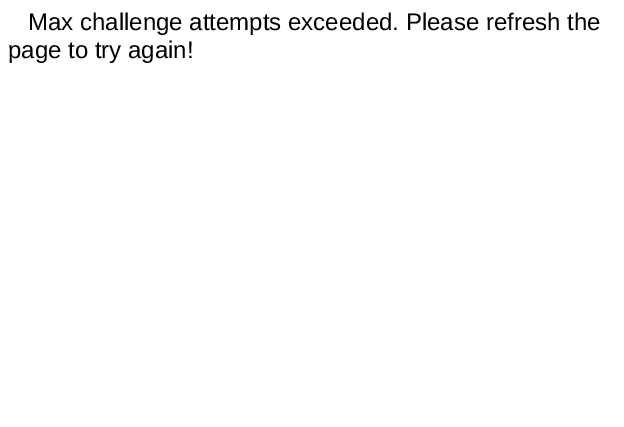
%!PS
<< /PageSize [624 427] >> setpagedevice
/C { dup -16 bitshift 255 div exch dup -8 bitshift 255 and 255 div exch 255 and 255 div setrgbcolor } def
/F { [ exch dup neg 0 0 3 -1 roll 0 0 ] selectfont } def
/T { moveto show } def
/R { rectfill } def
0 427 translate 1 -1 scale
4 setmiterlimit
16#FFFFFF C
0 0 624 427 R
/LiberationSans-Regular 24 F
16#000000 C
(Max challenge attempts exceeded. Please refresh the) 28 30 T
(page to try again!) 8 58 T
showpage
